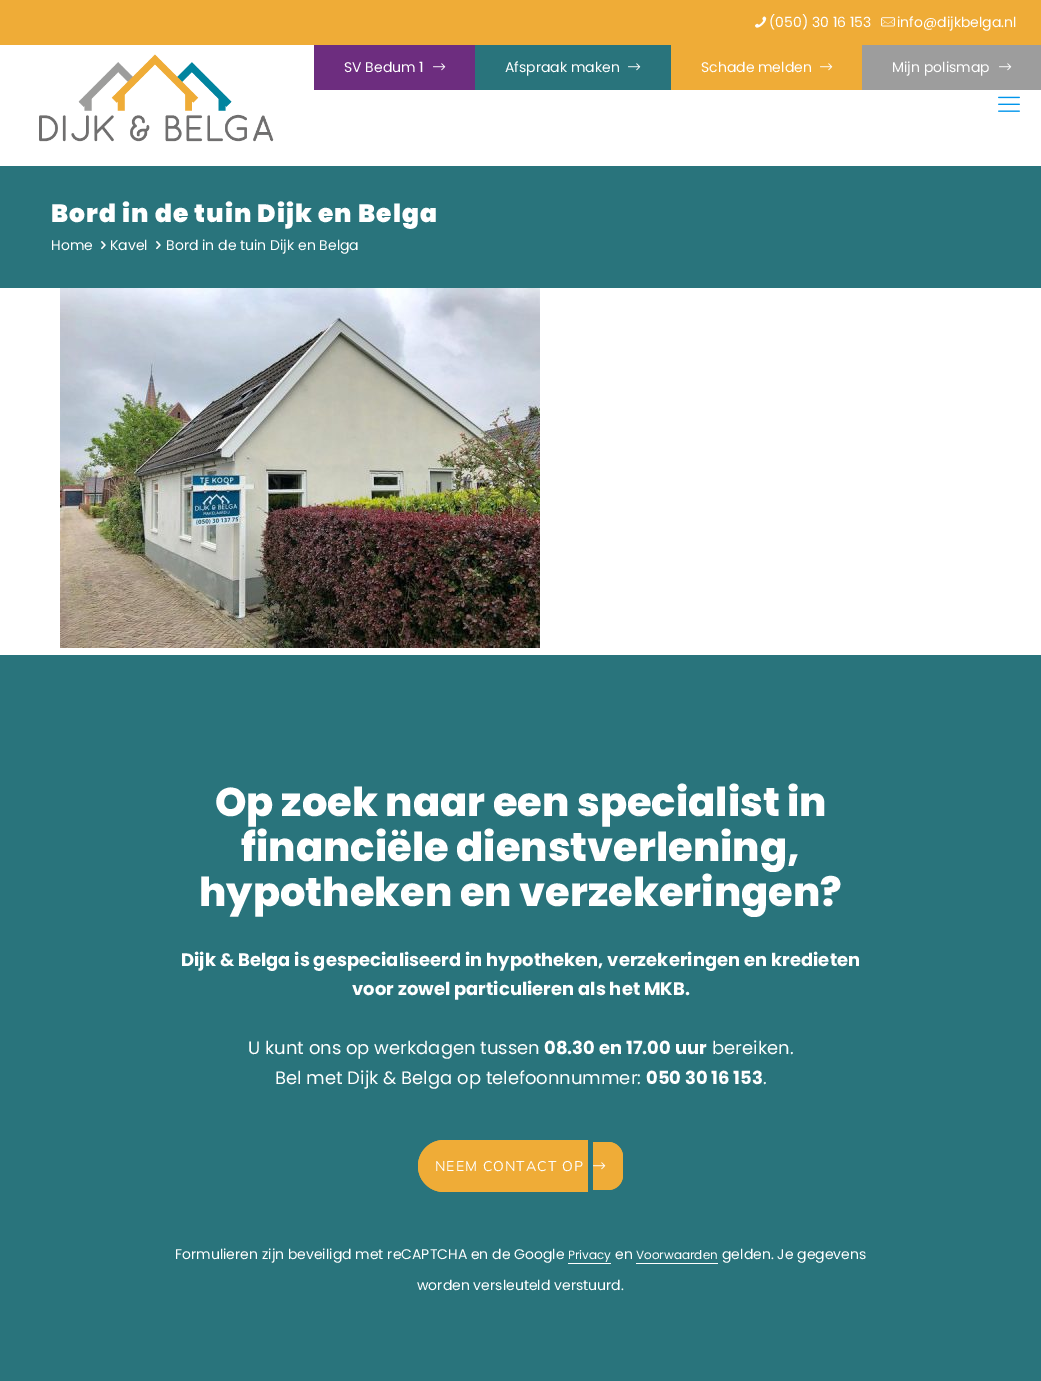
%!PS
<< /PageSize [1041 1381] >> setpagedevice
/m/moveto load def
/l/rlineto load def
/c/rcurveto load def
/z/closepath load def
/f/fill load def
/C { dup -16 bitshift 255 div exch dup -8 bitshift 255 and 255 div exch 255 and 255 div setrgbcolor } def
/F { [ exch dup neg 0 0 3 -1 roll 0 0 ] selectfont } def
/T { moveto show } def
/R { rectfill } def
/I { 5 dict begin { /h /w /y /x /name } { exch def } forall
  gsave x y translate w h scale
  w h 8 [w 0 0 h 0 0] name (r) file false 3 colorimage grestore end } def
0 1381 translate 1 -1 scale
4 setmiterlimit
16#FFFFFF C
0 0 1041 1381 R
16#EFAC37 C
0 0 1041 45 R
(1.rgb) 755 16 12 12 I
/Poppins-Regular 14 F
16#FFFFFF C
(\(050\) 30 16 153) 769 27 T
(2.rgb) 881 17 14 10 I
(info@dijkbelga.nl) 897 27 T
(3.rgb) 39 54 235 88 I
16#6D2D7F C
314 45 161 45 R
16#FFFFFF C
(SV Bedum 1) 344 72 T
(4.rgb) 433 63 13 8 I
16#29747C C
475 45 196 45 R
16#FFFFFF C
(Afspraak maken) 505 72 T
(5.rgb) 628 63 13 8 I
16#EFAC37 C
671 45 191 45 R
16#FFFFFF C
(Schade melden) 701 72 T
(6.rgb) 820 63 13 8 I
16#9D9D9D C
862 45 179 45 R
16#FFFFFF C
(Mijn polismap) 892 72 T
(7.rgb) 999 63 13 8 I
(8.rgb) 998 96 22 16 I
16#29747C C
0 166 1041 122 R
/Poppins-Black 25 F
16#FFFFFF C
51 222 m 1 0 (Bord in de tuin Dijk en Belga) ashow
/Poppins-Regular 14 F
(Home) 51 250 T
(9.rgb) 101 241 5 9 I
(Kavel) 110 250 T
(9.rgb) 156 241 5 9 I
(Bord in de tuin Dijk en Belga) 166 250 T
(10.rgb) 60 288 480 360 I
16#29747C C
0 655 1041 726 R
/Poppins-ExtraBold 40 F
16#FFFFFF C
(Op zoek naar een specialist in) 215 816 T
(financiële dienstverlening,) 241 861 T
(hypotheken en verzekeringen?) 199 906 T
/Poppins-Bold 18 F
(Dijk & Belga is gespecialiseerd in hypotheken, verzekeringen en kredieten) 181 966 T
(voor zowel particulieren als het MKB.) 352 995 T
/Poppins-Regular 18 F
(U kunt ons op werkdagen tussen) 248 1054 T
/Poppins-Bold 18 F
(08.30 en 17.00 uur) 544 1054 T
/Poppins-Regular 18 F
(bereiken.) 712 1054 T
(Bel met Dijk & Belga op telefoonnummer:) 275 1084 T
/Poppins-Bold 18 F
(050 30 16 153) 646 1084 T
/Poppins-Regular 18 F
(.) 763 1084 T
16#EFAC37 C
444 1140 m 144 0 l 0 52 l -144 0 l -14.5 0 -26 -11.5 -26 -26 c 0 -14.5 11.5 -26 26 -26 c z f
444 1140 m 144 0 l 0 52 l -144 0 l -14 0 -26 -12 -26 -26 c 0 -14 12 -26 26 -26 c z 444 1142 m 144 0 l 0 48 l -144 0 l -13 0 -24 -11 -24 -24 c 0 -13 11 -24 24 -24 c z eofill
593 1142 m 15 0 l 8.5 0 15 6.5 15 15 c 0 18 l 0 8.5 -6.5 15 -15 15 c -15 0 l z f
593 1142 m 15 0 l 8 0 15 7 15 15 c 0 18 l 0 8 -7 15 -15 15 c -15 0 l z 593 1144 m 10 0 25 -3 28 10 c 0 24 l -3 13 -18 10 -28 10 c z eofill
/Mulish-Regular 14 F
16#FFFFFF C
435 1171 m 1 0 (NEEM CONTACT OP) ashow
(6.rgb) 593 1162 13 8 I
/Poppins-Regular 14 F
(Formulieren zijn beveiligd met reCAPTCHA en de Google) 175 1259 T
/Poppins-Regular 12 F
(Privacy) 568 1259 T
568 1263 43 1 R
/Poppins-Regular 14 F
(en) 615 1259 T
/Poppins-Regular 12 F
(Voorwaarden) 636 1259 T
636 1263 82 1 R
/Poppins-Regular 14 F
(gelden. Je gegevens) 722 1259 T
(worden versleuteld verstuurd.) 417 1290 T
showpage
